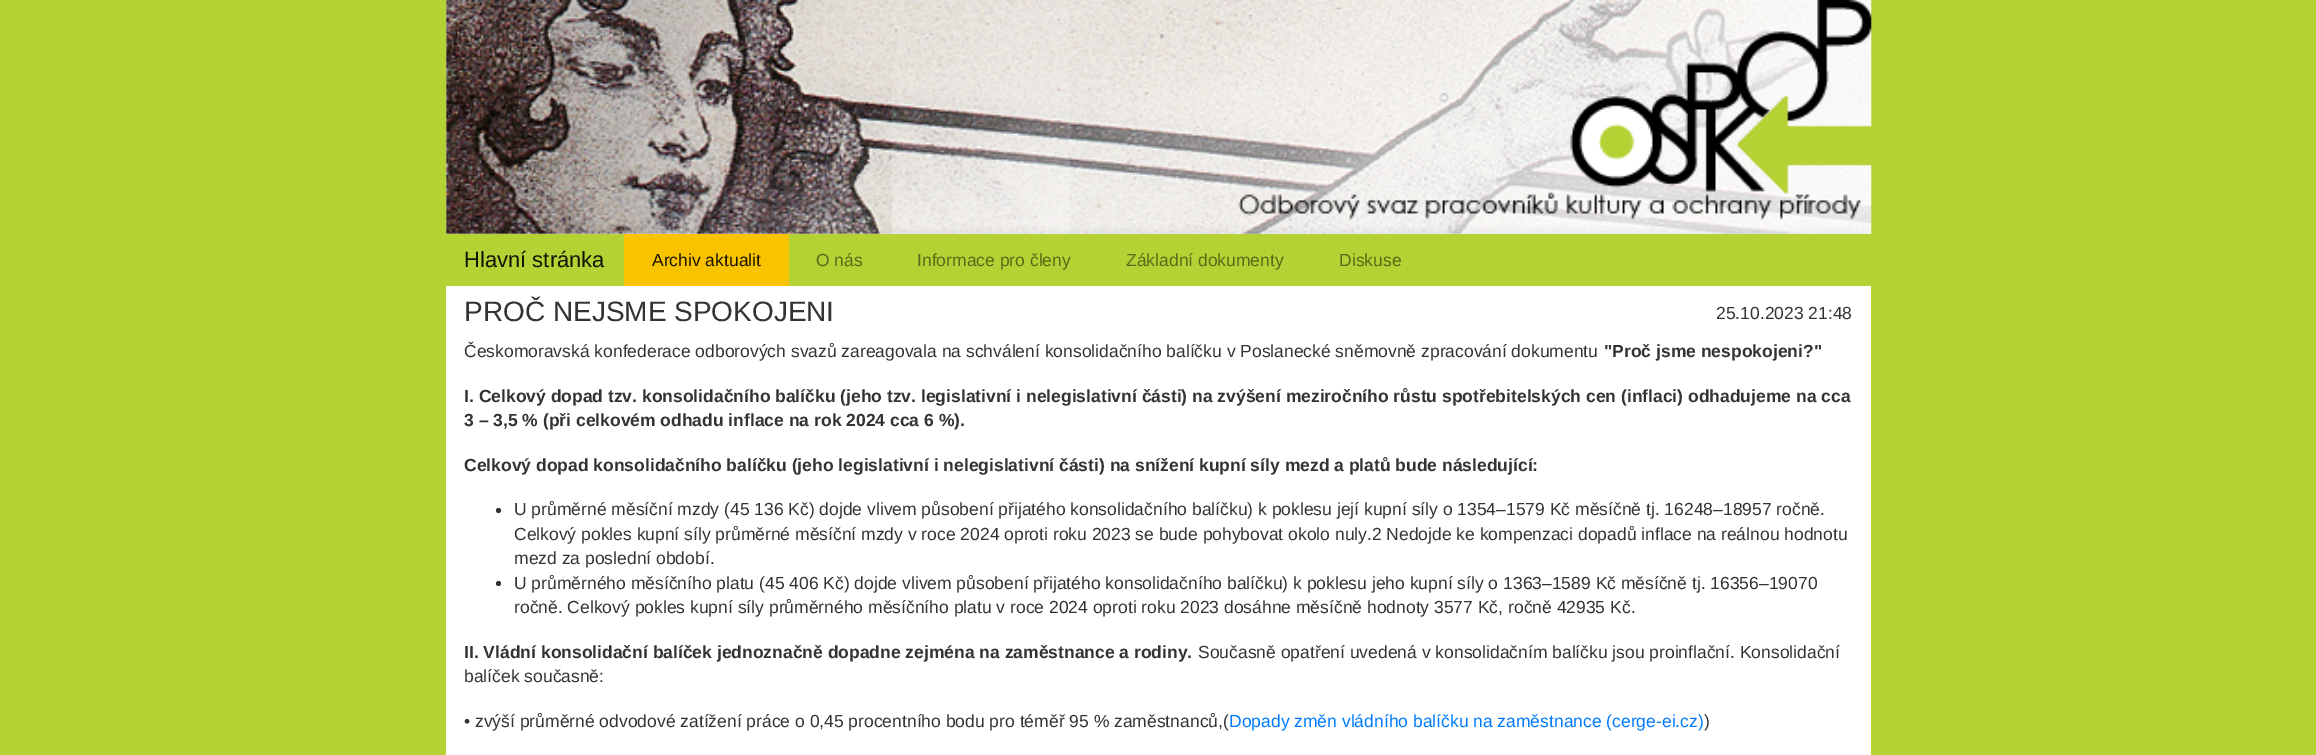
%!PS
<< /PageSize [2316 755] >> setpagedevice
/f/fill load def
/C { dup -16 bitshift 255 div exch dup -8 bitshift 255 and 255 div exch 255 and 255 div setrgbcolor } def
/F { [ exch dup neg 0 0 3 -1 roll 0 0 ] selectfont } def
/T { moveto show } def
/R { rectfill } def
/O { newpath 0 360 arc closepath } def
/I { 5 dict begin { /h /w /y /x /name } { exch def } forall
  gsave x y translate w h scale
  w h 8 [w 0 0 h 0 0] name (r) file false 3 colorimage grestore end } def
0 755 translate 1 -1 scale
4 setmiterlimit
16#B4D234 C
0 0 2316 755 R
16#FFFFFF C
446 0 1425 755 R
(1.rgb) 446 0 1426 234 I
16#B4D234 C
446 234 1425 52 R
/LiberationSans-Regular 22 F
16#121505 C
(Hlavní stránka) 464 267 T
16#FAC300 C
624 234 165 52 R
/LiberationSans-Regular 17.5 F
16#191400 C
(Archiv aktualit) 652 266 T
16#5A691A C
(O nás) 816 266 T
(Informace pro členy) 917 266 T
(Základní dokumenty) 1126 266 T
(Diskuse) 1339 266 T
/LiberationSans-Regular 28 F
16#333333 C
(PROČ NEJSME SPOKOJENI) 464 321 T
/LiberationSans-Regular 17.5 F
(25.10.2023 21:48) 1716 319 T
(Českomoravská konfederace odborových svazů zareagovala na schválení konsolidačního balíčku v Poslanecké sněmovně zpracování dokumentu) 464 357 T
/LiberationSans-Bold 17.5 F
("Proč jsme nespokojeni?") 1604 357 T
(I. Celkový dopad tzv. konsolidačního balíčku \(jeho tzv. legislativní i nelegislativní části\) na zvýšení meziročního růstu spotřebitelských cen \(inflaci\) odhadujeme na cca) 464 402 T
(3 – 3,5 % \(při celkovém odhadu inflace na rok 2024 cca 6 %\).) 464 426 T
(Celkový dopad konsolidačního balíčku \(jeho legislativní i nelegislativní části\) na snížení kupní síly mezd a platů bude následující:) 464 471 T
498.5 510.5 2.5 O f
/LiberationSans-Regular 17.5 F
(U průměrné měsíční mzdy \(45 136 Kč\) dojde vlivem působení přijatého konsolidačního balíčku\) k poklesu její kupní síly o 1354–1579 Kč měsíčně tj. 16248–18957 ročně.) 514 515 T
(Celkový pokles kupní síly průměrné měsíční mzdy v roce 2024 oproti roku 2023 se bude pohybovat okolo nuly.2 Nedojde ke kompenzaci dopadů inflace na reálnou hodnotu) 514 540 T
(mezd za poslední období.) 514 564 T
498.5 583.5 2.5 O f
(U průměrného měsíčního platu \(45 406 Kč\) dojde vlivem působení přijatého konsolidačního balíčku\) k poklesu jeho kupní síly o 1363–1589 Kč měsíčně tj. 16356–19070) 514 589 T
(ročně. Celkový pokles kupní síly průměrného měsíčního platu v roce 2024 oproti roku 2023 dosáhne měsíčně hodnoty 3577 Kč, ročně 42935 Kč.) 514 613 T
/LiberationSans-Bold 17.5 F
(II. Vládní konsolidační balíček jednoznačně dopadne zejména na zaměstnance a rodiny.) 464 658 T
/LiberationSans-Regular 17.5 F
(Současně opatření uvedená v konsolidačním balíčku jsou proinflační. Konsolidační) 1198 658 T
(balíček současně:) 464 682 T
(• zvýší průměrné odvodové zatížení práce o 0,45 procentního bodu pro téměř 95 % zaměstnanců,\() 464 727 T
16#007BFF C
(Dopady změn vládního balíčku na zaměstnance \(cerge-ei.cz\)) 1229 727 T
16#333333 C
(\)) 1704 727 T
showpage
